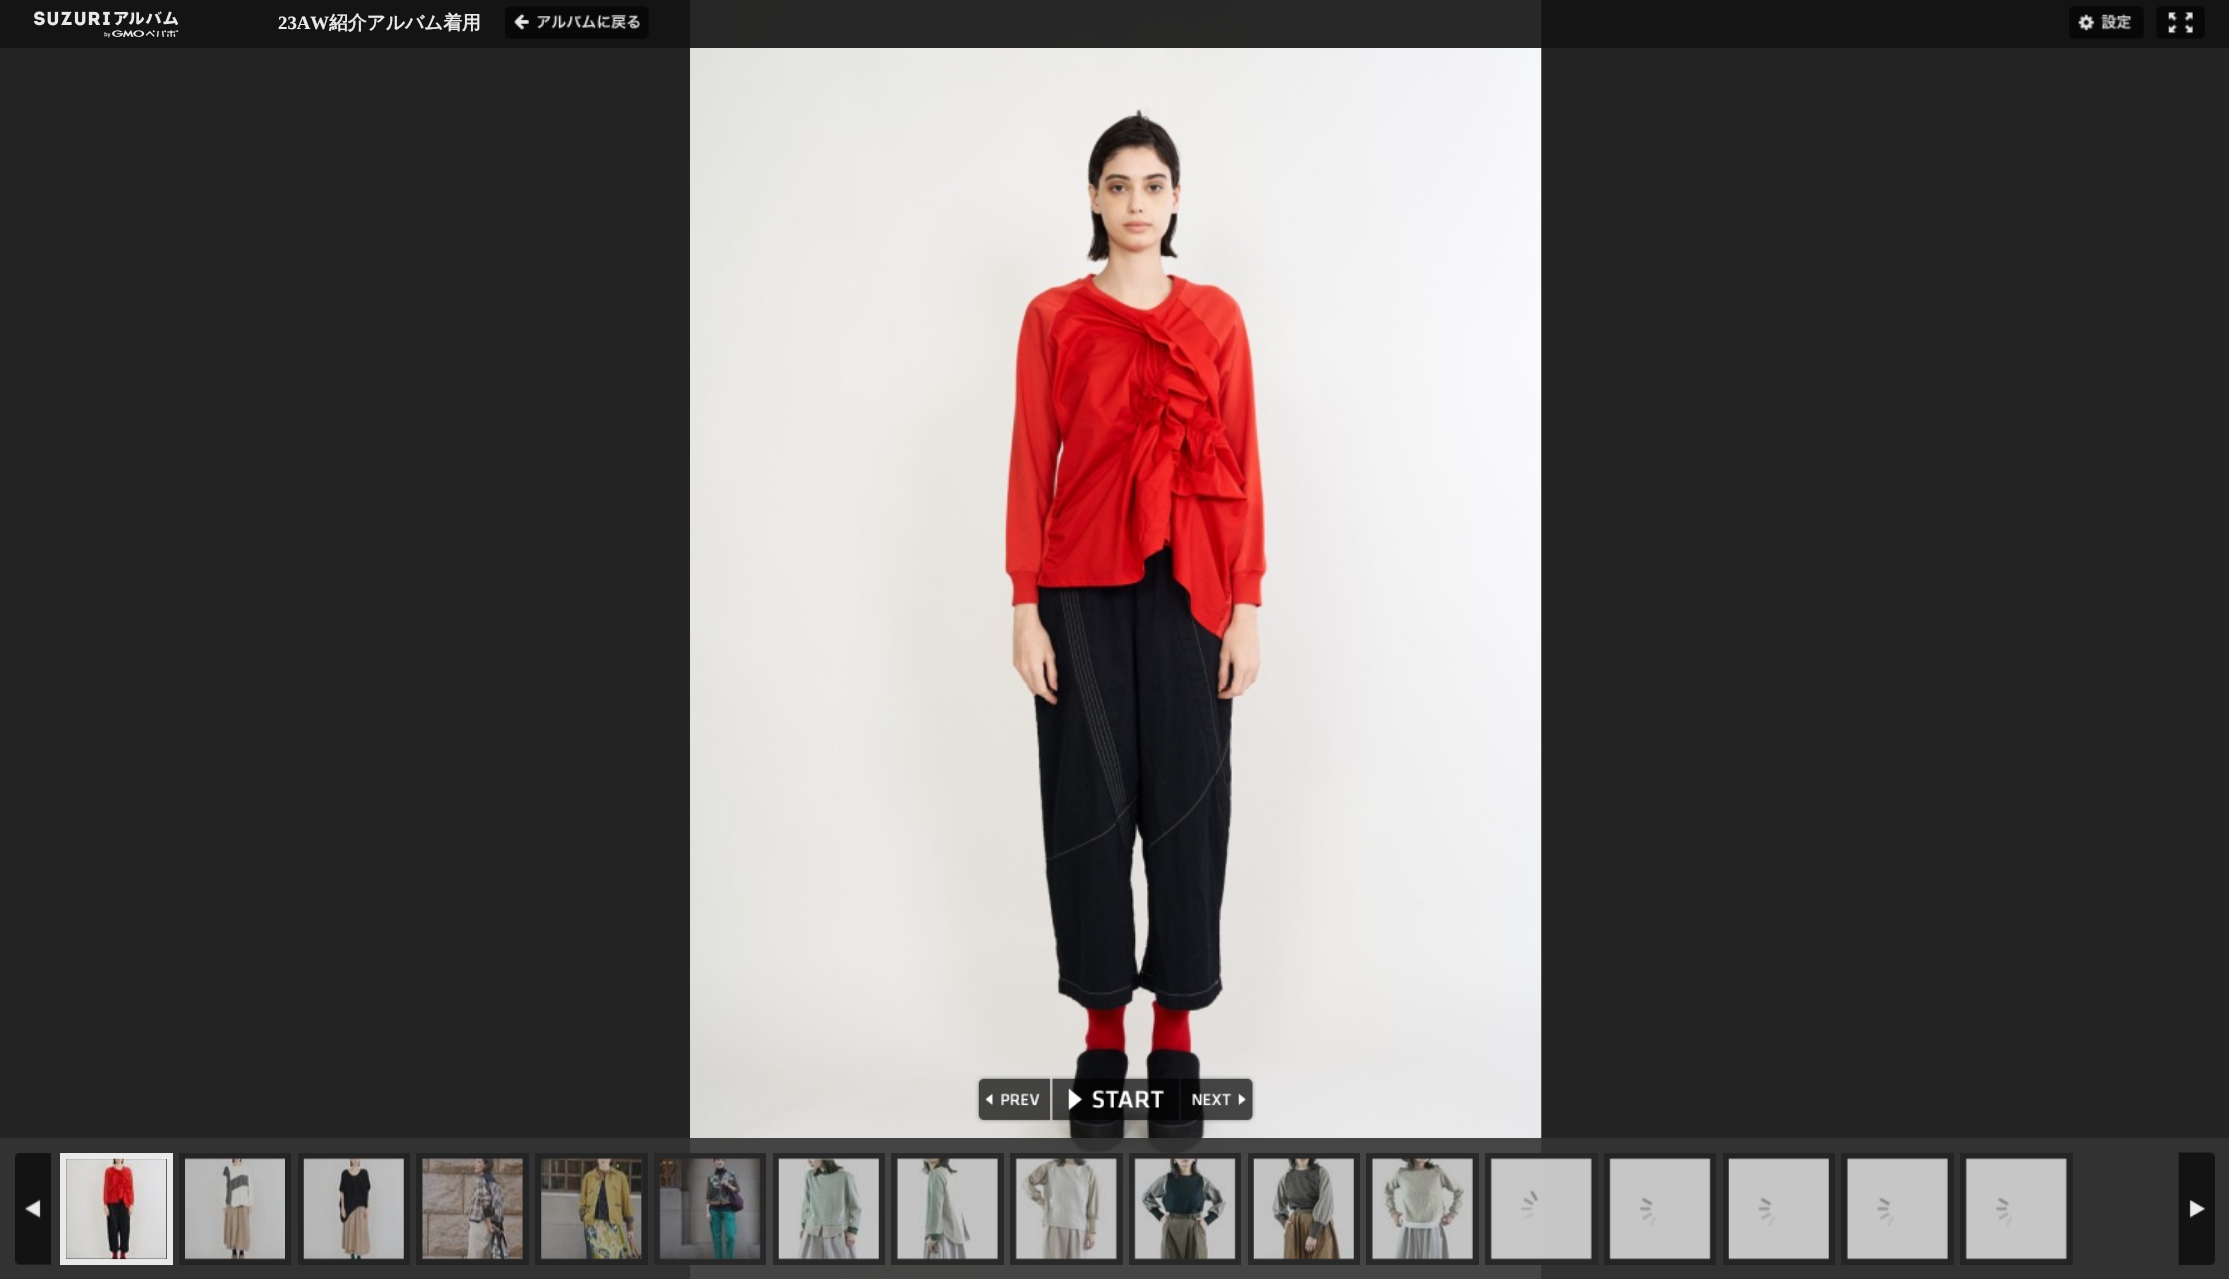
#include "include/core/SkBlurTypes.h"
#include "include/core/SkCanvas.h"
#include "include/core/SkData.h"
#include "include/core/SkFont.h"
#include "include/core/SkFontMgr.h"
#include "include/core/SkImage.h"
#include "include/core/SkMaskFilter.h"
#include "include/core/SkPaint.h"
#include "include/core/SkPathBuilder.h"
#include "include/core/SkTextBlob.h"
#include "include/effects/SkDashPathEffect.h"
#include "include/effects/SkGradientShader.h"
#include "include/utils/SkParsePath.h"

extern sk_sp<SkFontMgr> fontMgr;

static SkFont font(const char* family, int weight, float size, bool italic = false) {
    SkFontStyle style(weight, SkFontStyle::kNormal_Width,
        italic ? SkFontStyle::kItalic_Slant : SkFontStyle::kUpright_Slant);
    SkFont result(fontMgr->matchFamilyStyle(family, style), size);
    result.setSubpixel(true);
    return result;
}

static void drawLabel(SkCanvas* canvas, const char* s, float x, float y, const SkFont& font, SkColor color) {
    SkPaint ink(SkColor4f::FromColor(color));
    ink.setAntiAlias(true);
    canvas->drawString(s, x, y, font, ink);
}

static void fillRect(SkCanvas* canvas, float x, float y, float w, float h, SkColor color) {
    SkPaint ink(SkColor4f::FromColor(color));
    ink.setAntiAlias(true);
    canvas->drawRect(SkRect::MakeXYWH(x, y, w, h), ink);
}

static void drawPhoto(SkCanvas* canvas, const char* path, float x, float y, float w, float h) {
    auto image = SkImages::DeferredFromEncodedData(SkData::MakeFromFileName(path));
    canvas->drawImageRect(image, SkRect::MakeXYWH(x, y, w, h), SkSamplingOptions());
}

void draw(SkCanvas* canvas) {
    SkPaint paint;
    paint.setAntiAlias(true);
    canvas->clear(0xFF242424);
    drawPhoto(canvas, "assets/img5.png", 690, 0, 852, 1279);
    fillRect(canvas, 0, 0, 2229, 48, 0xE6121212);
    drawPhoto(canvas, "assets/img1.png", 34, 11, 145, 27);
    SkFont font1 = font("Liberation Serif", 700, 18.75f);
    drawLabel(canvas, "23AW", 278, 29, font1, 0xFFE9E9E9);
    SkFont font2 = font("WenQuanYi Zen Hei", 700, 18.75f);
    drawLabel(canvas, "紹介アルバム着用", 329, 29, font2, 0xFFE9E9E9);
    drawPhoto(canvas, "assets/img2.png", 505, 6, 144, 33);
    drawPhoto(canvas, "assets/img3.png", 2069, 6, 75, 33);
    drawPhoto(canvas, "assets/img4.png", 2156, 6, 49, 33);
    drawPhoto(canvas, "assets/img6.png", 975, 1075, 75, 49);
    drawPhoto(canvas, "assets/img7.png", 1050, 1075, 131, 49);
    drawPhoto(canvas, "assets/img8.png", 1181, 1075, 75, 49);
    fillRect(canvas, 0, 1138, 2229, 141, 0xE6333333);
    drawPhoto(canvas, "assets/img9.png", 15, 1153, 36, 112);
    paint.setStroke(true);
    paint.setStrokeWidth(6);
    paint.setColor(0xFFE9E9E9);
    canvas->drawRect(SkRect::MakeXYWH(63, 1156, 107, 106), paint);
    drawPhoto(canvas, "assets/img10.png", 66, 1158, 101, 102);
    paint.setColor(0xFF242424);
    canvas->drawRect(SkRect::MakeXYWH(182, 1156, 106, 106), paint);
    drawPhoto(canvas, "assets/img11.png", 185, 1158, 100, 102);
    canvas->drawRect(SkRect::MakeXYWH(301, 1156, 106, 106), paint);
    drawPhoto(canvas, "assets/img12.png", 303, 1158, 101, 102);
    canvas->drawRect(SkRect::MakeXYWH(419, 1156, 107, 106), paint);
    drawPhoto(canvas, "assets/img13.png", 422, 1158, 101, 102);
    canvas->drawRect(SkRect::MakeXYWH(538, 1156, 107, 106), paint);
    drawPhoto(canvas, "assets/img14.png", 541, 1158, 101, 102);
    fillRect(canvas, 690, 1159, 70, 100, 0xE6333333);
    paint.setColor(0xFF282828);
    canvas->drawRect(SkRect::MakeXYWH(657, 1156, 106, 106), paint);
    drawPhoto(canvas, "assets/img15.png", 659, 1158, 102, 102);
    paint.setStroke(false);
    paint.setColor(0xFF353535);
    canvas->drawRect(SkRect::MakeXYWH(776, 1156, 106, 106), paint);
    paint.setStroke(true);
    paint.setColor(0xFF292929);
    canvas->drawRect(SkRect::MakeXYWH(776, 1156, 106, 106), paint);
    drawPhoto(canvas, "assets/img16.png", 778, 1158, 101, 102);
    paint.setStroke(false);
    paint.setColor(0xFF353535);
    canvas->drawRect(SkRect::MakeXYWH(894, 1156, 107, 106), paint);
    paint.setStroke(true);
    paint.setColor(0xFF292929);
    canvas->drawRect(SkRect::MakeXYWH(894, 1156, 107, 106), paint);
    drawPhoto(canvas, "assets/img17.png", 896, 1158, 102, 102);
    paint.setStroke(false);
    paint.setColor(0xE6333333);
    canvas->drawRect(SkRect::MakeXYWH(1013, 1156, 107, 106), paint);
    paint.setStroke(true);
    paint.setColor(0xFF292929);
    canvas->drawRect(SkRect::MakeXYWH(1013, 1156, 107, 106), paint);
    drawPhoto(canvas, "assets/img18.png", 1015, 1158, 102, 102);
    paint.setStroke(false);
    paint.setColor(0xE6333333);
    canvas->drawRect(SkRect::MakeXYWH(1132, 1156, 106, 106), paint);
    paint.setStroke(true);
    paint.setColor(0xFF292929);
    canvas->drawRect(SkRect::MakeXYWH(1132, 1156, 106, 106), paint);
    drawPhoto(canvas, "assets/img19.png", 1134, 1158, 102, 102);
    paint.setStroke(false);
    paint.setColor(0xFF353535);
    canvas->drawRect(SkRect::MakeXYWH(1251, 1156, 106, 106), paint);
    paint.setStroke(true);
    paint.setColor(0xFF292929);
    canvas->drawRect(SkRect::MakeXYWH(1251, 1156, 106, 106), paint);
    drawPhoto(canvas, "assets/img20.png", 1253, 1158, 101, 102);
    paint.setStroke(false);
    paint.setColor(0xFF353535);
    canvas->drawRect(SkRect::MakeXYWH(1369, 1156, 107, 106), paint);
    paint.setStroke(true);
    paint.setColor(0xFF292929);
    canvas->drawRect(SkRect::MakeXYWH(1369, 1156, 107, 106), paint);
    drawPhoto(canvas, "assets/img21.png", 1371, 1158, 102, 102);
    fillRect(canvas, 1491, 1159, 51, 100, 0xE6333333);
    paint.setColor(0xFF282828);
    canvas->drawRect(SkRect::MakeXYWH(1488, 1156, 107, 106), paint);
    drawPhoto(canvas, "assets/img22.png", 1490, 1158, 102, 102);
    paint.setColor(0xFF242424);
    canvas->drawRect(SkRect::MakeXYWH(1607, 1156, 106, 106), paint);
    drawPhoto(canvas, "assets/img23.png", 1609, 1158, 102, 102);
    canvas->drawRect(SkRect::MakeXYWH(1726, 1156, 106, 106), paint);
    drawPhoto(canvas, "assets/img24.png", 1728, 1158, 101, 102);
    canvas->drawRect(SkRect::MakeXYWH(1844, 1156, 107, 106), paint);
    drawPhoto(canvas, "assets/img25.png", 1846, 1158, 102, 102);
    canvas->drawRect(SkRect::MakeXYWH(1963, 1156, 107, 106), paint);
    drawPhoto(canvas, "assets/img26.png", 1965, 1158, 102, 102);
    drawPhoto(canvas, "assets/img27.png", 2178, 1152, 37, 113);
}
